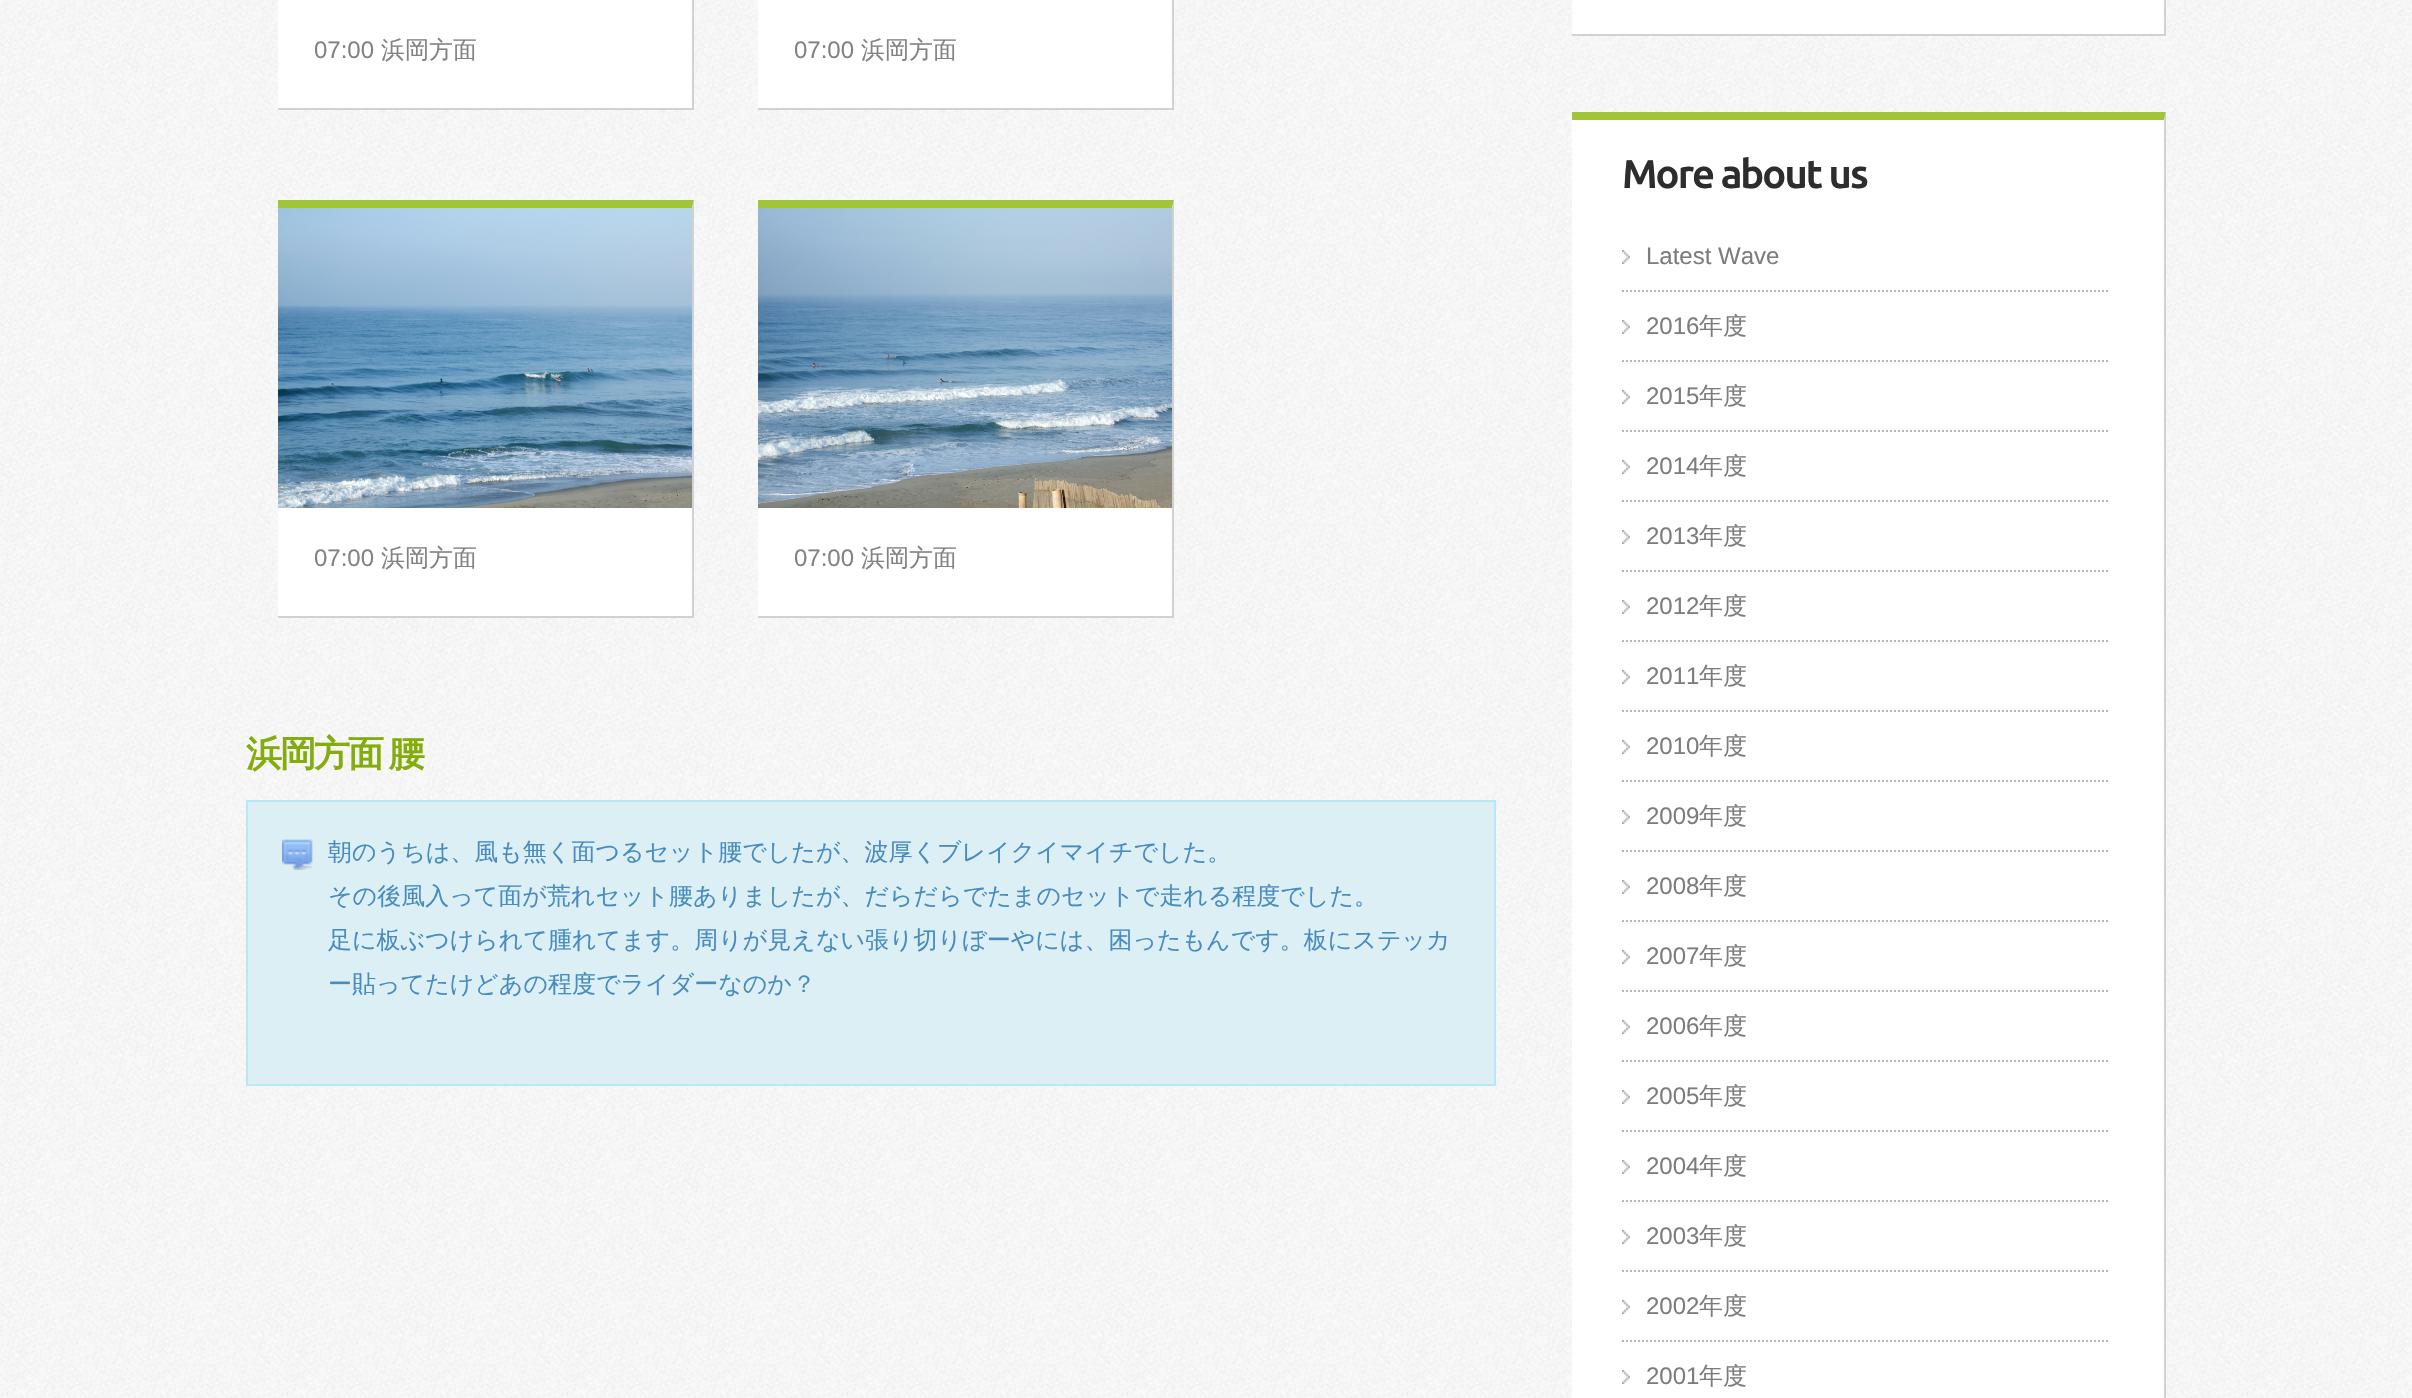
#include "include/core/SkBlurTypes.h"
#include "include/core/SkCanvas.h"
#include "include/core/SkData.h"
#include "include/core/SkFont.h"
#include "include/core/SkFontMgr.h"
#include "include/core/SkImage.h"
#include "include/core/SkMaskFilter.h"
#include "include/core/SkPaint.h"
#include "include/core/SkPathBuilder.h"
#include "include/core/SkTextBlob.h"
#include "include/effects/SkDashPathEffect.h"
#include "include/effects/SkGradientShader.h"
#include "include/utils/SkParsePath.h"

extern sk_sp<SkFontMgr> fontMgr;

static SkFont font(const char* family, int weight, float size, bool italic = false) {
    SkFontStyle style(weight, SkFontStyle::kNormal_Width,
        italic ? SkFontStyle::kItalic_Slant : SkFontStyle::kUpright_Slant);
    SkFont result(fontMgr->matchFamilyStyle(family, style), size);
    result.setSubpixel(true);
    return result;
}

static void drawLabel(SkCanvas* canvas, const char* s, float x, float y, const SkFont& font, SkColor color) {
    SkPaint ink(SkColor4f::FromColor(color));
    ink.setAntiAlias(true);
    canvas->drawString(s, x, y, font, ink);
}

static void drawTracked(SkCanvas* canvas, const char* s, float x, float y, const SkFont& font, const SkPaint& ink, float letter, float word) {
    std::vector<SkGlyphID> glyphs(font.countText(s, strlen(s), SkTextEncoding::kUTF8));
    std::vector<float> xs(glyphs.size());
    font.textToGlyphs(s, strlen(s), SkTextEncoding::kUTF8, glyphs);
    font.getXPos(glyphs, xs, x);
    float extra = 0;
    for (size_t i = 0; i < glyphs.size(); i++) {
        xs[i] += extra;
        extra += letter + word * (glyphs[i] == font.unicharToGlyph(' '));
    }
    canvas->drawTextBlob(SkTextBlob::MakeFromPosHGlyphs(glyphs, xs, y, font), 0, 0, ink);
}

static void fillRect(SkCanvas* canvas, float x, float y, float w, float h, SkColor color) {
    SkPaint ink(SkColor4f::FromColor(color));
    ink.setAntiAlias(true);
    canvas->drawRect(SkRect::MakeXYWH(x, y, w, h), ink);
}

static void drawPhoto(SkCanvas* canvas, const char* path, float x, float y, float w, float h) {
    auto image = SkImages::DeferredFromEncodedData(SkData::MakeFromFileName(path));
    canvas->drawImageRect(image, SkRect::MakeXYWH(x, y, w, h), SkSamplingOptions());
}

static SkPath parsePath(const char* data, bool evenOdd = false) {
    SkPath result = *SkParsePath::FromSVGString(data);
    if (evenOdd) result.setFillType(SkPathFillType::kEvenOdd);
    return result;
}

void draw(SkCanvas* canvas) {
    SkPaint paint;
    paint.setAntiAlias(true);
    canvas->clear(0xFFFFFFFF);
    drawPhoto(canvas, "assets/img1.png", 0, 0, 2412, 1398);
    fillRect(canvas, 278, 0, 414, 108, 0xFFFFFFFF);
    paint.setColor(0xFFD0D1D1);
    canvas->drawPath(parsePath("M694-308V110L692 108V-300Z"), paint);
    fillRect(canvas, 278, 108, 416, 2, 0xFFD0D1D1);
    SkFont font1 = font("Liberation Sans", 400, 24);
    drawLabel(canvas, "07:00", 314, 58, font1, 0xFF828282);
    SkFont font2 = font("WenQuanYi Zen Hei", 500, 24);
    drawLabel(canvas, "浜岡方面", 381, 58, font2, 0xFF828282);
    fillRect(canvas, 758, 0, 414, 108, 0xFFFFFFFF);
    canvas->drawPath(parsePath("M1174-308V110L1172 108V-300Z"), paint);
    fillRect(canvas, 758, 108, 416, 2, 0xFFD0D1D1);
    drawLabel(canvas, "07:00", 794, 58, font1, 0xFF828282);
    drawLabel(canvas, "浜岡方面", 861, 58, font2, 0xFF828282);
    fillRect(canvas, 278, 200, 416, 416, 0xFFFFFFFF);
    paint.setColor(0xFFA2C437);
    canvas->drawPath(parsePath("M278 200H694L692 208H278Z"), paint);
    paint.setColor(0xFFD0D1D1);
    canvas->drawPath(parsePath("M694 200V618L692 616V208Z"), paint);
    fillRect(canvas, 278, 616, 416, 2, 0xFFD0D1D1);
    drawPhoto(canvas, "assets/img2.png", 278, 208, 414, 300);
    drawLabel(canvas, "07:00", 314, 566, font1, 0xFF828282);
    drawLabel(canvas, "浜岡方面", 381, 566, font2, 0xFF828282);
    fillRect(canvas, 758, 200, 416, 416, 0xFFFFFFFF);
    paint.setColor(0xFFA2C437);
    canvas->drawPath(parsePath("M758 200H1174L1172 208H758Z"), paint);
    paint.setColor(0xFFD0D1D1);
    canvas->drawPath(parsePath("M1174 200V618L1172 616V208Z"), paint);
    fillRect(canvas, 758, 616, 416, 2, 0xFFD0D1D1);
    drawPhoto(canvas, "assets/img3.png", 758, 208, 414, 300);
    drawLabel(canvas, "07:00", 794, 566, font1, 0xFF828282);
    drawLabel(canvas, "浜岡方面", 861, 566, font2, 0xFF828282);
    SkFont font3 = font("WenQuanYi Zen Hei", 700, 36);
    paint.setColor(0xFF84AC0A);
    drawTracked(canvas, "浜岡方面 腰", 246, 766, font3, paint, -2, -2);
    fillRect(canvas, 248, 802, 1246, 282, 0xFFDCEFF5);
    drawPhoto(canvas, "assets/img4.png", 282, 839, 31, 31);
    paint.setStroke(true);
    paint.setStrokeWidth(2);
    paint.setColor(0xFFB8E7F5);
    canvas->drawRect(SkRect::MakeXYWH(247, 801, 1248, 284), paint);
    drawLabel(canvas, "朝のうちは、風も無く面つるセット腰でしたが、波厚くブレイクイマイチでした。", 328, 860, font2, 0xFF478BBF);
    drawLabel(canvas, "その後風入って面が荒れセット腰ありましたが、だらだらでたまのセットで走れる程度でした。", 328, 904, font2, 0xFF478BBF);
    drawLabel(canvas, "足に板ぶつけられて腫れてます。周りが見えない張り切りぼーやには、困ったもんです。板にステッカ", 328, 948, font2, 0xFF478BBF);
    drawLabel(canvas, "ー貼ってたけどあの程度でライダーなのか？", 328, 992, font2, 0xFF478BBF);
    fillRect(canvas, 1572, 0, 592, 34, 0xFFFFFFFF);
    paint.setStroke(false);
    paint.setColor(0xFFD0D1D1);
    canvas->drawPath(parsePath("M2166-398V36L2164 34V-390Z"), paint);
    fillRect(canvas, 1572, 34, 594, 2, 0xFFD0D1D1);
    fillRect(canvas, 1572, 112, 594, 1286, 0xFFFFFFFF);
    paint.setColor(0xFFA2C437);
    canvas->drawPath(parsePath("M1572 112H2166L2164 120H1572Z"), paint);
    paint.setColor(0xFFD0D1D1);
    canvas->drawPath(parsePath("M2166 112V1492L2164 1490V120Z"), paint);
    SkFont font4 = font("Ubuntu", 700, 40);
    paint.setColor(0xFF2D2D2D);
    drawTracked(canvas, "More about us", 1622, 188, font4, paint, -2, 0);
    paint.setStroke(true);
    paint.setColor(0xFFB6B6B6);
    paint.setPathEffect(SkDashPathEffect::Make({{2, 2}}, 0));
    canvas->drawPath(parsePath("M1622 291H2110"), paint);
    paint.setPathEffect(nullptr);
    drawPhoto(canvas, "assets/img5.png", 1622, 250, 8, 14);
    drawLabel(canvas, "Latest Wave", 1646, 264, font1, 0xFF7C7C7C);
    paint.setPathEffect(SkDashPathEffect::Make({{2, 2}}, 0));
    canvas->drawPath(parsePath("M1622 361H2110"), paint);
    paint.setPathEffect(nullptr);
    drawPhoto(canvas, "assets/img5.png", 1622, 320, 8, 14);
    drawLabel(canvas, "2016", 1646, 334, font1, 0xFF7C7C7C);
    drawLabel(canvas, "年度", 1699, 334, font2, 0xFF7C7C7C);
    paint.setPathEffect(SkDashPathEffect::Make({{2, 2}}, 0));
    canvas->drawPath(parsePath("M1622 431H2110"), paint);
    paint.setPathEffect(nullptr);
    drawPhoto(canvas, "assets/img5.png", 1622, 390, 8, 14);
    drawLabel(canvas, "2015", 1646, 404, font1, 0xFF7C7C7C);
    drawLabel(canvas, "年度", 1699, 404, font2, 0xFF7C7C7C);
    paint.setPathEffect(SkDashPathEffect::Make({{2, 2}}, 0));
    canvas->drawPath(parsePath("M1622 501H2110"), paint);
    paint.setPathEffect(nullptr);
    drawPhoto(canvas, "assets/img5.png", 1622, 460, 8, 14);
    drawLabel(canvas, "2014", 1646, 474, font1, 0xFF7C7C7C);
    drawLabel(canvas, "年度", 1699, 474, font2, 0xFF7C7C7C);
    paint.setPathEffect(SkDashPathEffect::Make({{2, 2}}, 0));
    canvas->drawPath(parsePath("M1622 571H2110"), paint);
    paint.setPathEffect(nullptr);
    drawPhoto(canvas, "assets/img5.png", 1622, 530, 8, 14);
    drawLabel(canvas, "2013", 1646, 544, font1, 0xFF7C7C7C);
    drawLabel(canvas, "年度", 1699, 544, font2, 0xFF7C7C7C);
    paint.setPathEffect(SkDashPathEffect::Make({{2, 2}}, 0));
    canvas->drawPath(parsePath("M1622 641H2110"), paint);
    paint.setPathEffect(nullptr);
    drawPhoto(canvas, "assets/img5.png", 1622, 600, 8, 14);
    drawLabel(canvas, "2012", 1646, 614, font1, 0xFF7C7C7C);
    drawLabel(canvas, "年度", 1699, 614, font2, 0xFF7C7C7C);
    paint.setPathEffect(SkDashPathEffect::Make({{2, 2}}, 0));
    canvas->drawPath(parsePath("M1622 711H2110"), paint);
    paint.setPathEffect(nullptr);
    drawPhoto(canvas, "assets/img5.png", 1622, 670, 8, 14);
    drawLabel(canvas, "2011", 1646, 684, font1, 0xFF7C7C7C);
    drawLabel(canvas, "年度", 1699, 684, font2, 0xFF7C7C7C);
    paint.setPathEffect(SkDashPathEffect::Make({{2, 2}}, 0));
    canvas->drawPath(parsePath("M1622 781H2110"), paint);
    paint.setPathEffect(nullptr);
    drawPhoto(canvas, "assets/img5.png", 1622, 740, 8, 14);
    drawLabel(canvas, "2010", 1646, 754, font1, 0xFF7C7C7C);
    drawLabel(canvas, "年度", 1699, 754, font2, 0xFF7C7C7C);
    paint.setPathEffect(SkDashPathEffect::Make({{2, 2}}, 0));
    canvas->drawPath(parsePath("M1622 851H2110"), paint);
    paint.setPathEffect(nullptr);
    drawPhoto(canvas, "assets/img5.png", 1622, 810, 8, 14);
    drawLabel(canvas, "2009", 1646, 824, font1, 0xFF7C7C7C);
    drawLabel(canvas, "年度", 1699, 824, font2, 0xFF7C7C7C);
    paint.setPathEffect(SkDashPathEffect::Make({{2, 2}}, 0));
    canvas->drawPath(parsePath("M1622 921H2110"), paint);
    paint.setPathEffect(nullptr);
    drawPhoto(canvas, "assets/img5.png", 1622, 880, 8, 14);
    drawLabel(canvas, "2008", 1646, 894, font1, 0xFF7C7C7C);
    drawLabel(canvas, "年度", 1699, 894, font2, 0xFF7C7C7C);
    paint.setPathEffect(SkDashPathEffect::Make({{2, 2}}, 0));
    canvas->drawPath(parsePath("M1622 991H2110"), paint);
    paint.setPathEffect(nullptr);
    drawPhoto(canvas, "assets/img5.png", 1622, 950, 8, 14);
    drawLabel(canvas, "2007", 1646, 964, font1, 0xFF7C7C7C);
    drawLabel(canvas, "年度", 1699, 964, font2, 0xFF7C7C7C);
    paint.setPathEffect(SkDashPathEffect::Make({{2, 2}}, 0));
    canvas->drawPath(parsePath("M1622 1061H2110"), paint);
    paint.setPathEffect(nullptr);
    drawPhoto(canvas, "assets/img5.png", 1622, 1020, 8, 14);
    drawLabel(canvas, "2006", 1646, 1034, font1, 0xFF7C7C7C);
    drawLabel(canvas, "年度", 1699, 1034, font2, 0xFF7C7C7C);
    paint.setPathEffect(SkDashPathEffect::Make({{2, 2}}, 0));
    canvas->drawPath(parsePath("M1622 1131H2110"), paint);
    paint.setPathEffect(nullptr);
    drawPhoto(canvas, "assets/img5.png", 1622, 1090, 8, 14);
    drawLabel(canvas, "2005", 1646, 1104, font1, 0xFF7C7C7C);
    drawLabel(canvas, "年度", 1699, 1104, font2, 0xFF7C7C7C);
    paint.setPathEffect(SkDashPathEffect::Make({{2, 2}}, 0));
    canvas->drawPath(parsePath("M1622 1201H2110"), paint);
    paint.setPathEffect(nullptr);
    drawPhoto(canvas, "assets/img5.png", 1622, 1160, 8, 14);
    drawLabel(canvas, "2004", 1646, 1174, font1, 0xFF7C7C7C);
    drawLabel(canvas, "年度", 1699, 1174, font2, 0xFF7C7C7C);
    paint.setPathEffect(SkDashPathEffect::Make({{2, 2}}, 0));
    canvas->drawPath(parsePath("M1622 1271H2110"), paint);
    paint.setPathEffect(nullptr);
    drawPhoto(canvas, "assets/img5.png", 1622, 1230, 8, 14);
    drawLabel(canvas, "2003", 1646, 1244, font1, 0xFF7C7C7C);
    drawLabel(canvas, "年度", 1699, 1244, font2, 0xFF7C7C7C);
    paint.setPathEffect(SkDashPathEffect::Make({{2, 2}}, 0));
    canvas->drawPath(parsePath("M1622 1341H2110"), paint);
    paint.setPathEffect(nullptr);
    drawPhoto(canvas, "assets/img5.png", 1622, 1300, 8, 14);
    drawLabel(canvas, "2002", 1646, 1314, font1, 0xFF7C7C7C);
    drawLabel(canvas, "年度", 1699, 1314, font2, 0xFF7C7C7C);
    drawPhoto(canvas, "assets/img5.png", 1622, 1370, 8, 14);
    drawLabel(canvas, "2001", 1646, 1384, font1, 0xFF7C7C7C);
    drawLabel(canvas, "年度", 1699, 1384, font2, 0xFF7C7C7C);
}
